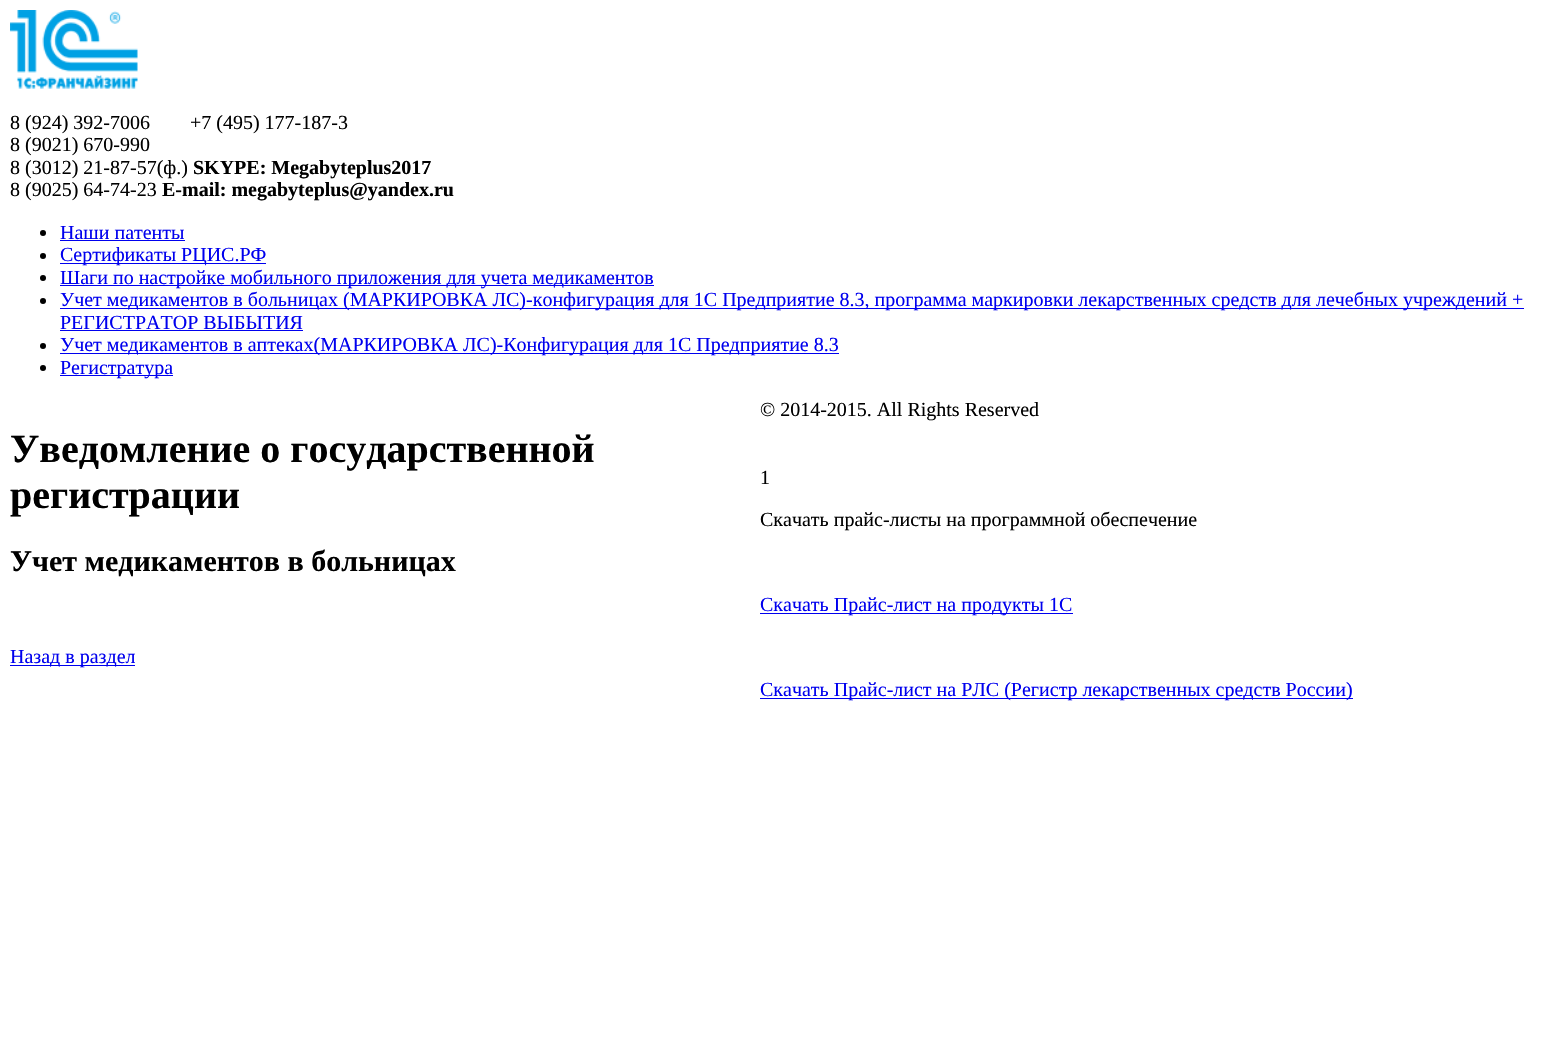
#include "include/core/SkBlurTypes.h"
#include "include/core/SkCanvas.h"
#include "include/core/SkData.h"
#include "include/core/SkFont.h"
#include "include/core/SkFontMgr.h"
#include "include/core/SkImage.h"
#include "include/core/SkMaskFilter.h"
#include "include/core/SkPaint.h"
#include "include/core/SkPathBuilder.h"
#include "include/core/SkTextBlob.h"
#include "include/effects/SkDashPathEffect.h"
#include "include/effects/SkGradientShader.h"
#include "include/utils/SkParsePath.h"

extern sk_sp<SkFontMgr> fontMgr;

static SkFont font(const char* family, int weight, float size, bool italic = false) {
    SkFontStyle style(weight, SkFontStyle::kNormal_Width,
        italic ? SkFontStyle::kItalic_Slant : SkFontStyle::kUpright_Slant);
    SkFont result(fontMgr->matchFamilyStyle(family, style), size);
    result.setSubpixel(true);
    return result;
}

static void drawLabel(SkCanvas* canvas, const char* s, float x, float y, const SkFont& font, SkColor color) {
    SkPaint ink(SkColor4f::FromColor(color));
    ink.setAntiAlias(true);
    canvas->drawString(s, x, y, font, ink);
}

static void fillRect(SkCanvas* canvas, float x, float y, float w, float h, SkColor color) {
    SkPaint ink(SkColor4f::FromColor(color));
    ink.setAntiAlias(true);
    canvas->drawRect(SkRect::MakeXYWH(x, y, w, h), ink);
}

static void drawPhoto(SkCanvas* canvas, const char* path, float x, float y, float w, float h) {
    auto image = SkImages::DeferredFromEncodedData(SkData::MakeFromFileName(path));
    canvas->drawImageRect(image, SkRect::MakeXYWH(x, y, w, h), SkSamplingOptions());
}

void draw(SkCanvas* canvas) {
    SkPaint paint;
    paint.setAntiAlias(true);
    canvas->clear(0xFFFFFFFF);
    drawPhoto(canvas, "assets/img1.png", 10, 10, 128, 79);
    SkFont font1 = font("Liberation Serif", 400, 20);
    drawLabel(canvas, "8 (924) 392-7006        +7 (495) 177-187-3", 10, 129, font1, 0xFF000000);
    drawLabel(canvas, "8 (9021) 670-990", 10, 151, font1, 0xFF000000);
    drawLabel(canvas, "8 (3012) 21-87-57(ф.)", 10, 174, font1, 0xFF000000);
    SkFont font2 = font("Liberation Serif", 700, 20);
    drawLabel(canvas, "SKYPE: Megabyteplus2017", 193, 174, font2, 0xFF000000);
    drawLabel(canvas, "8 (9025) 64-74-23", 10, 196, font1, 0xFF000000);
    drawLabel(canvas, "E-mail: megabyteplus@yandex.ru", 162, 196, font2, 0xFF000000);
    paint.setColor(0xFF000000);
    canvas->drawCircle(43, 233, 3, paint);
    drawLabel(canvas, "Наши патенты", 60, 239, font1, 0xFF0000EE);
    fillRect(canvas, 60, 240, 125, 1, 0xFF0000EE);
    canvas->drawCircle(43, 256, 3, paint);
    fillRect(canvas, 60, 263, 206, 1, 0xFF0000EE);
    drawLabel(canvas, "Сертификаты РЦИС.РФ", 60, 261, font1, 0xFF0000EE);
    canvas->drawCircle(43, 278, 3, paint);
    fillRect(canvas, 60, 285, 594, 1, 0xFF0000EE);
    drawLabel(canvas, "Шаги по настройке мобильного приложения для учета медикаментов", 60, 284, font1, 0xFF0000EE);
    canvas->drawCircle(43, 301, 3, paint);
    fillRect(canvas, 60, 308, 1464, 1, 0xFF0000EE);
    drawLabel(canvas, "Учет медикаментов в больницах (МАРКИРОВКА ЛС)-конфигурация для 1С Предприятие 8.3, программа маркировки лекарственных средств для лечебных учреждений +", 60, 306, font1, 0xFF0000EE);
    drawLabel(canvas, "РЕГИСТРАТОР ВЫБЫТИЯ", 60, 329, font1, 0xFF0000EE);
    fillRect(canvas, 60, 330, 243, 1, 0xFF0000EE);
    canvas->drawCircle(43, 346, 3, paint);
    fillRect(canvas, 60, 353, 779, 1, 0xFF0000EE);
    drawLabel(canvas, "Учет медикаментов в аптеках(МАРКИРОВКА ЛС)-Конфигурация для 1С Предприятие 8.3", 60, 351, font1, 0xFF0000EE);
    canvas->drawCircle(43, 368, 3, paint);
    fillRect(canvas, 60, 375, 113, 1, 0xFF0000EE);
    drawLabel(canvas, "Регистратура", 60, 374, font1, 0xFF0000EE);
    SkFont font3 = font("Liberation Serif", 700, 40);
    drawLabel(canvas, "Уведомление о государственной", 10, 462, font3, 0xFF000000);
    drawLabel(canvas, "регистрации", 10, 508, font3, 0xFF000000);
    SkFont font4 = font("Liberation Serif", 700, 30);
    drawLabel(canvas, "Учет медикаментов в больницах", 10, 571, font4, 0xFF000000);
    fillRect(canvas, 10, 665, 125, 1, 0xFF0000EE);
    drawLabel(canvas, "Назад в раздел", 10, 663, font1, 0xFF0000EE);
    drawLabel(canvas, "© 2014-2015. All Rights Reserved", 760, 416, font1, 0xFF000000);
    drawLabel(canvas, "1", 760, 484, font1, 0xFF000000);
    drawLabel(canvas, "Скачать прайс-листы на программной обеспечение", 760, 526, font1, 0xFF000000);
    fillRect(canvas, 760, 613, 313, 1, 0xFF0000EE);
    drawLabel(canvas, "Скачать Прайс-лист на продукты 1С", 760, 611, font1, 0xFF0000EE);
    fillRect(canvas, 760, 698, 593, 1, 0xFF0000EE);
    drawLabel(canvas, "Скачать Прайс-лист на РЛС (Регистр лекарственных средств России)", 760, 696, font1, 0xFF0000EE);
}
